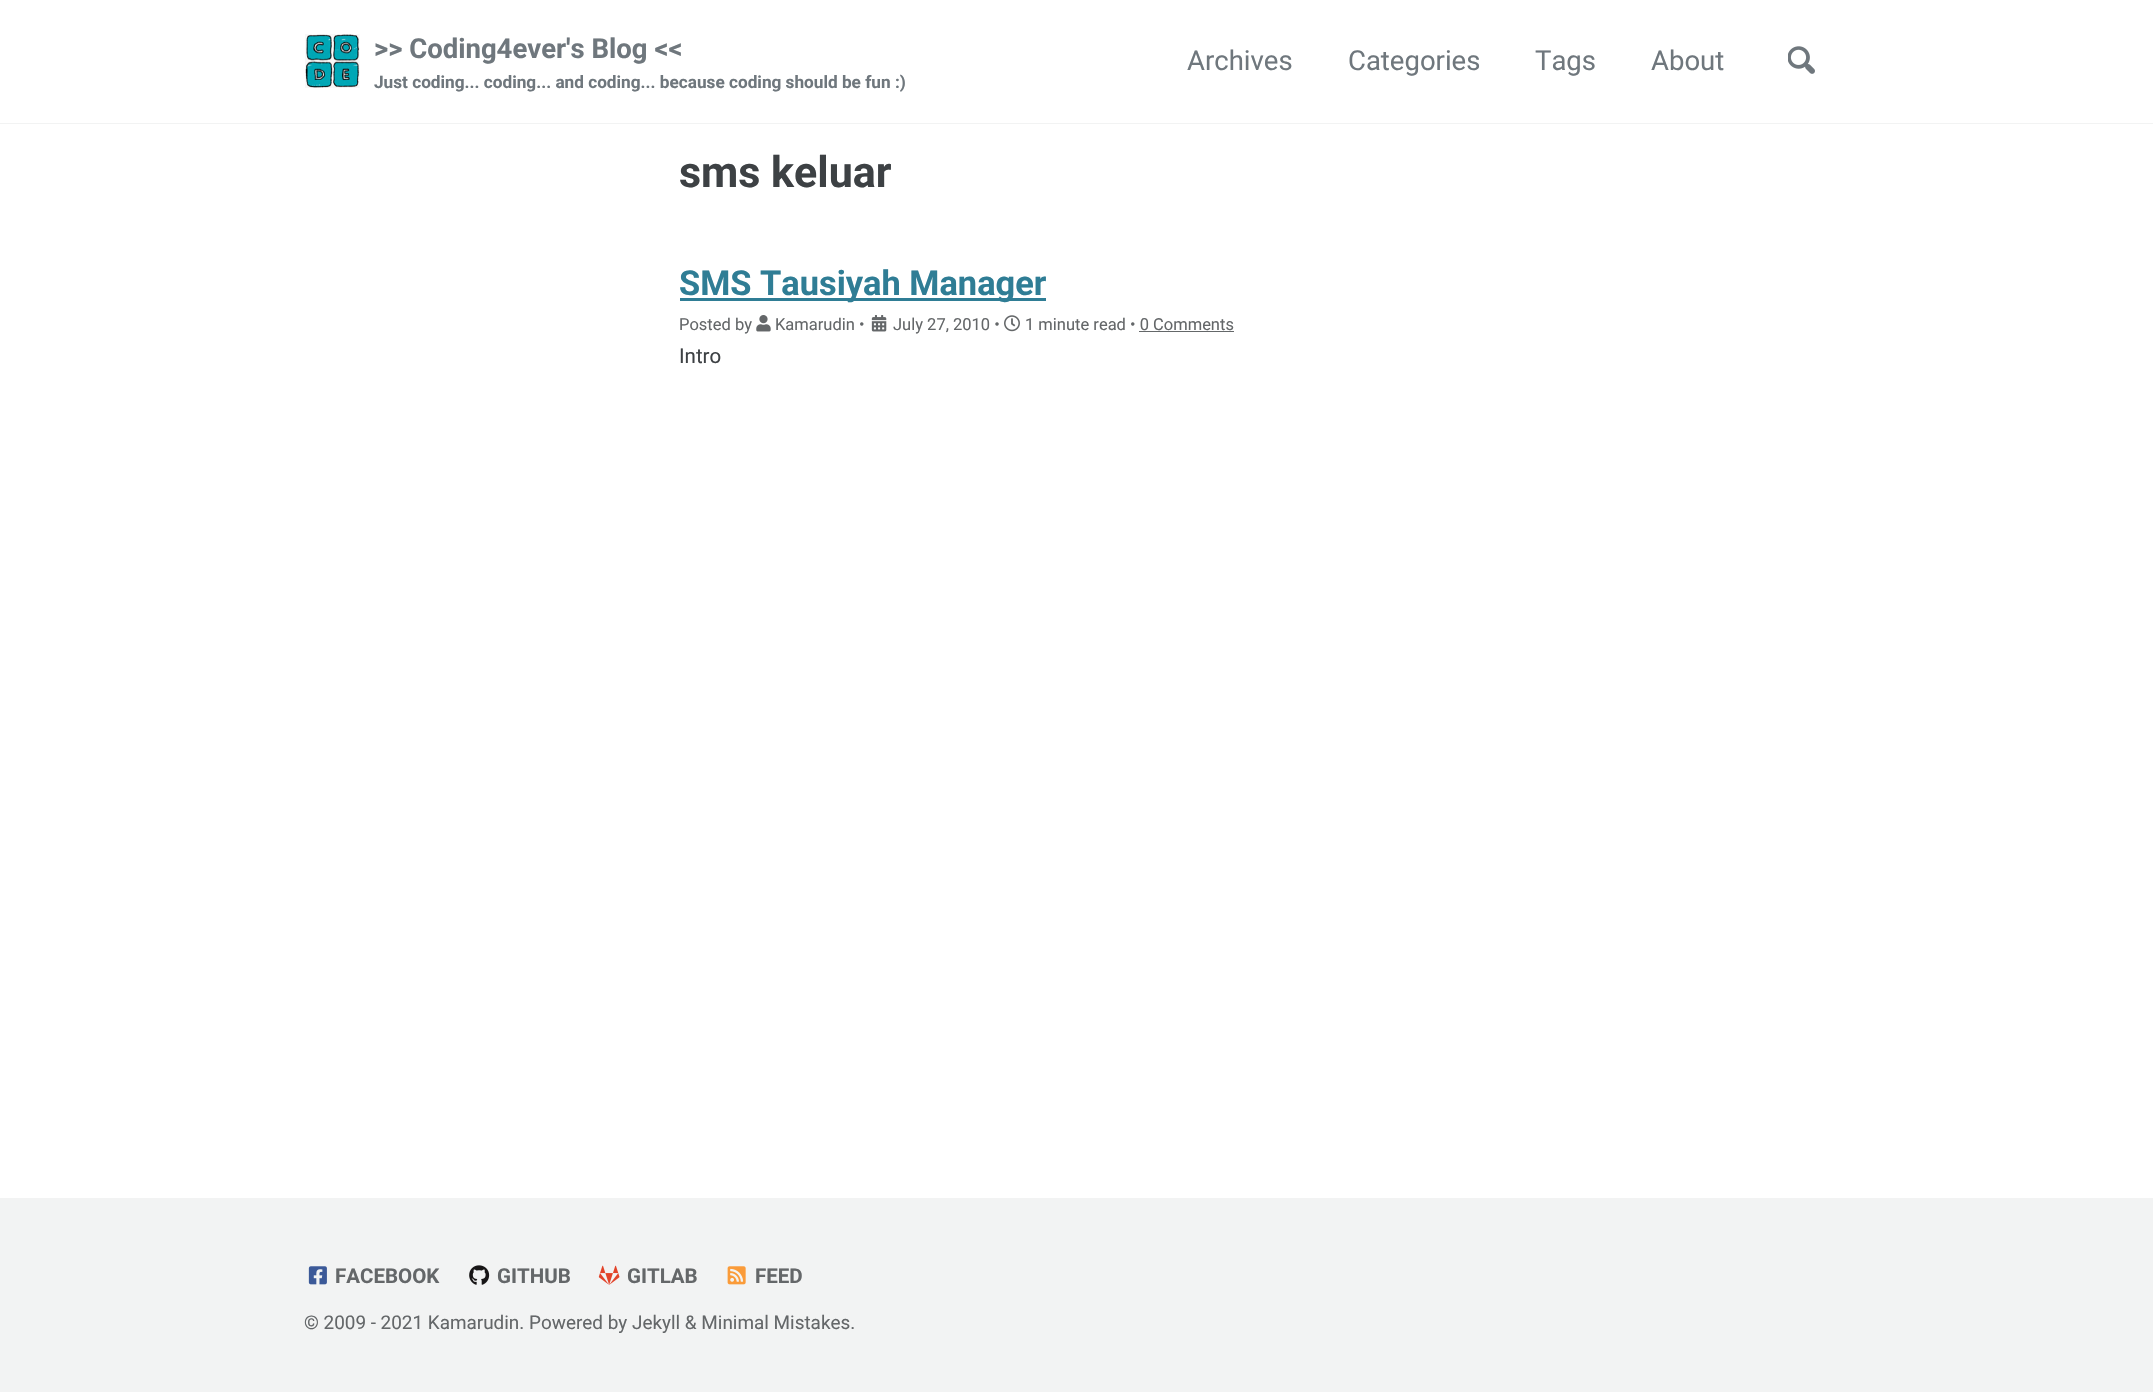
#include "include/core/SkBlurTypes.h"
#include "include/core/SkCanvas.h"
#include "include/core/SkData.h"
#include "include/core/SkFont.h"
#include "include/core/SkFontMgr.h"
#include "include/core/SkImage.h"
#include "include/core/SkMaskFilter.h"
#include "include/core/SkPaint.h"
#include "include/core/SkPathBuilder.h"
#include "include/core/SkTextBlob.h"
#include "include/effects/SkDashPathEffect.h"
#include "include/effects/SkGradientShader.h"
#include "include/utils/SkParsePath.h"

extern sk_sp<SkFontMgr> fontMgr;

static SkFont font(const char* family, int weight, float size, bool italic = false) {
    SkFontStyle style(weight, SkFontStyle::kNormal_Width,
        italic ? SkFontStyle::kItalic_Slant : SkFontStyle::kUpright_Slant);
    SkFont result(fontMgr->matchFamilyStyle(family, style), size);
    result.setSubpixel(true);
    return result;
}

static void drawLabel(SkCanvas* canvas, const char* s, float x, float y, const SkFont& font, SkColor color) {
    SkPaint ink(SkColor4f::FromColor(color));
    ink.setAntiAlias(true);
    canvas->drawString(s, x, y, font, ink);
}

static void fillRect(SkCanvas* canvas, float x, float y, float w, float h, SkColor color) {
    SkPaint ink(SkColor4f::FromColor(color));
    ink.setAntiAlias(true);
    canvas->drawRect(SkRect::MakeXYWH(x, y, w, h), ink);
}

static void drawPhoto(SkCanvas* canvas, const char* path, float x, float y, float w, float h) {
    auto image = SkImages::DeferredFromEncodedData(SkData::MakeFromFileName(path));
    canvas->drawImageRect(image, SkRect::MakeXYWH(x, y, w, h), SkSamplingOptions());
}

void draw(SkCanvas* canvas) {
    SkPaint paint;
    paint.setAntiAlias(true);
    canvas->clear(0xFFFFFFFF);
    fillRect(canvas, 0, 123, 2153, 1, 0xFFF2F3F3);
    drawPhoto(canvas, "assets/img1.png", 305, 34, 55, 54);
    SkFont font1 = font("Roboto", 700, 27.5f);
    drawLabel(canvas, ">> Coding4ever's Blog <<", 374, 58, font1, 0xFF6F777D);
    SkFont font2 = font("Roboto", 700, 17.2f);
    drawLabel(canvas, "Just coding... coding... and coding... because coding should be fun :)", 374, 88, font2, 0xFF6F777D);
    SkFont font3 = font("Roboto", 400, 27.5f);
    drawLabel(canvas, "Archives", 1187, 70, font3, 0xFF6F777D);
    drawLabel(canvas, "Categories", 1348, 70, font3, 0xFF6F777D);
    drawLabel(canvas, "Tags", 1535, 70, font3, 0xFF6F777D);
    drawLabel(canvas, "About", 1651, 70, font3, 0xFF6F777D);
    drawPhoto(canvas, "assets/img2.png", 1788, 46, 27, 28);
    SkFont font4 = font("Roboto", 700, 43);
    drawLabel(canvas, "sms keluar", 679, 187, font4, 0xFF3D4144);
    fillRect(canvas, 680, 298, 366, 3, 0xFF2F7D95);
    SkFont font5 = font("Roboto", 700, 34.4f);
    drawLabel(canvas, "SMS Tausiyah Manager", 679, 295, font5, 0xFF2F7D95);
    SkFont font6 = font("Roboto", 400, 16.5f);
    drawLabel(canvas, "Posted by", 679, 330, font6, 0xFF646769);
    drawPhoto(canvas, "assets/img3.png", 756, 315, 15, 17);
    drawLabel(canvas, "Kamarudin •", 775, 330, font6, 0xFF646769);
    drawPhoto(canvas, "assets/img4.png", 871, 315, 16, 17);
    drawLabel(canvas, "July 27, 2010 •", 893, 330, font6, 0xFF646769);
    drawPhoto(canvas, "assets/img5.png", 1004, 315, 16, 17);
    drawLabel(canvas, "1 minute read • 0 Comments", 1025, 330, font6, 0xFF646769);
    fillRect(canvas, 1139, 331, 95, 1, 0xFF646769);
    SkFont font7 = font("Roboto", 400, 20.5f);
    drawLabel(canvas, "Intro", 679, 363, font7, 0xFF3D4144);
    fillRect(canvas, 0, 1198, 2153, 194, 0xFFF2F3F3);
    drawPhoto(canvas, "assets/img6.png", 308, 1266, 19, 19);
    SkFont font8 = font("Roboto", 700, 20.5f);
    drawLabel(canvas, "FACEBOOK", 335, 1283, font8, 0xFF646769);
    drawPhoto(canvas, "assets/img7.png", 469, 1265, 21, 20);
    drawLabel(canvas, "GITHUB", 497, 1283, font8, 0xFF646769);
    drawPhoto(canvas, "assets/img8.png", 598, 1265, 22, 20);
    drawLabel(canvas, "GITLAB", 627, 1283, font8, 0xFF646769);
    drawPhoto(canvas, "assets/img9.png", 727, 1266, 19, 19);
    drawLabel(canvas, "FEED", 755, 1283, font8, 0xFF646769);
    SkFont font9 = font("Roboto", 400, 18.9f);
    drawLabel(canvas, "© 2009 - 2021 Kamarudin. Powered by", 304, 1329, font9, 0xFF646769);
    drawLabel(canvas, "Jekyll & Minimal Mistakes.", 632, 1329, font9, 0xFF646769);
}
